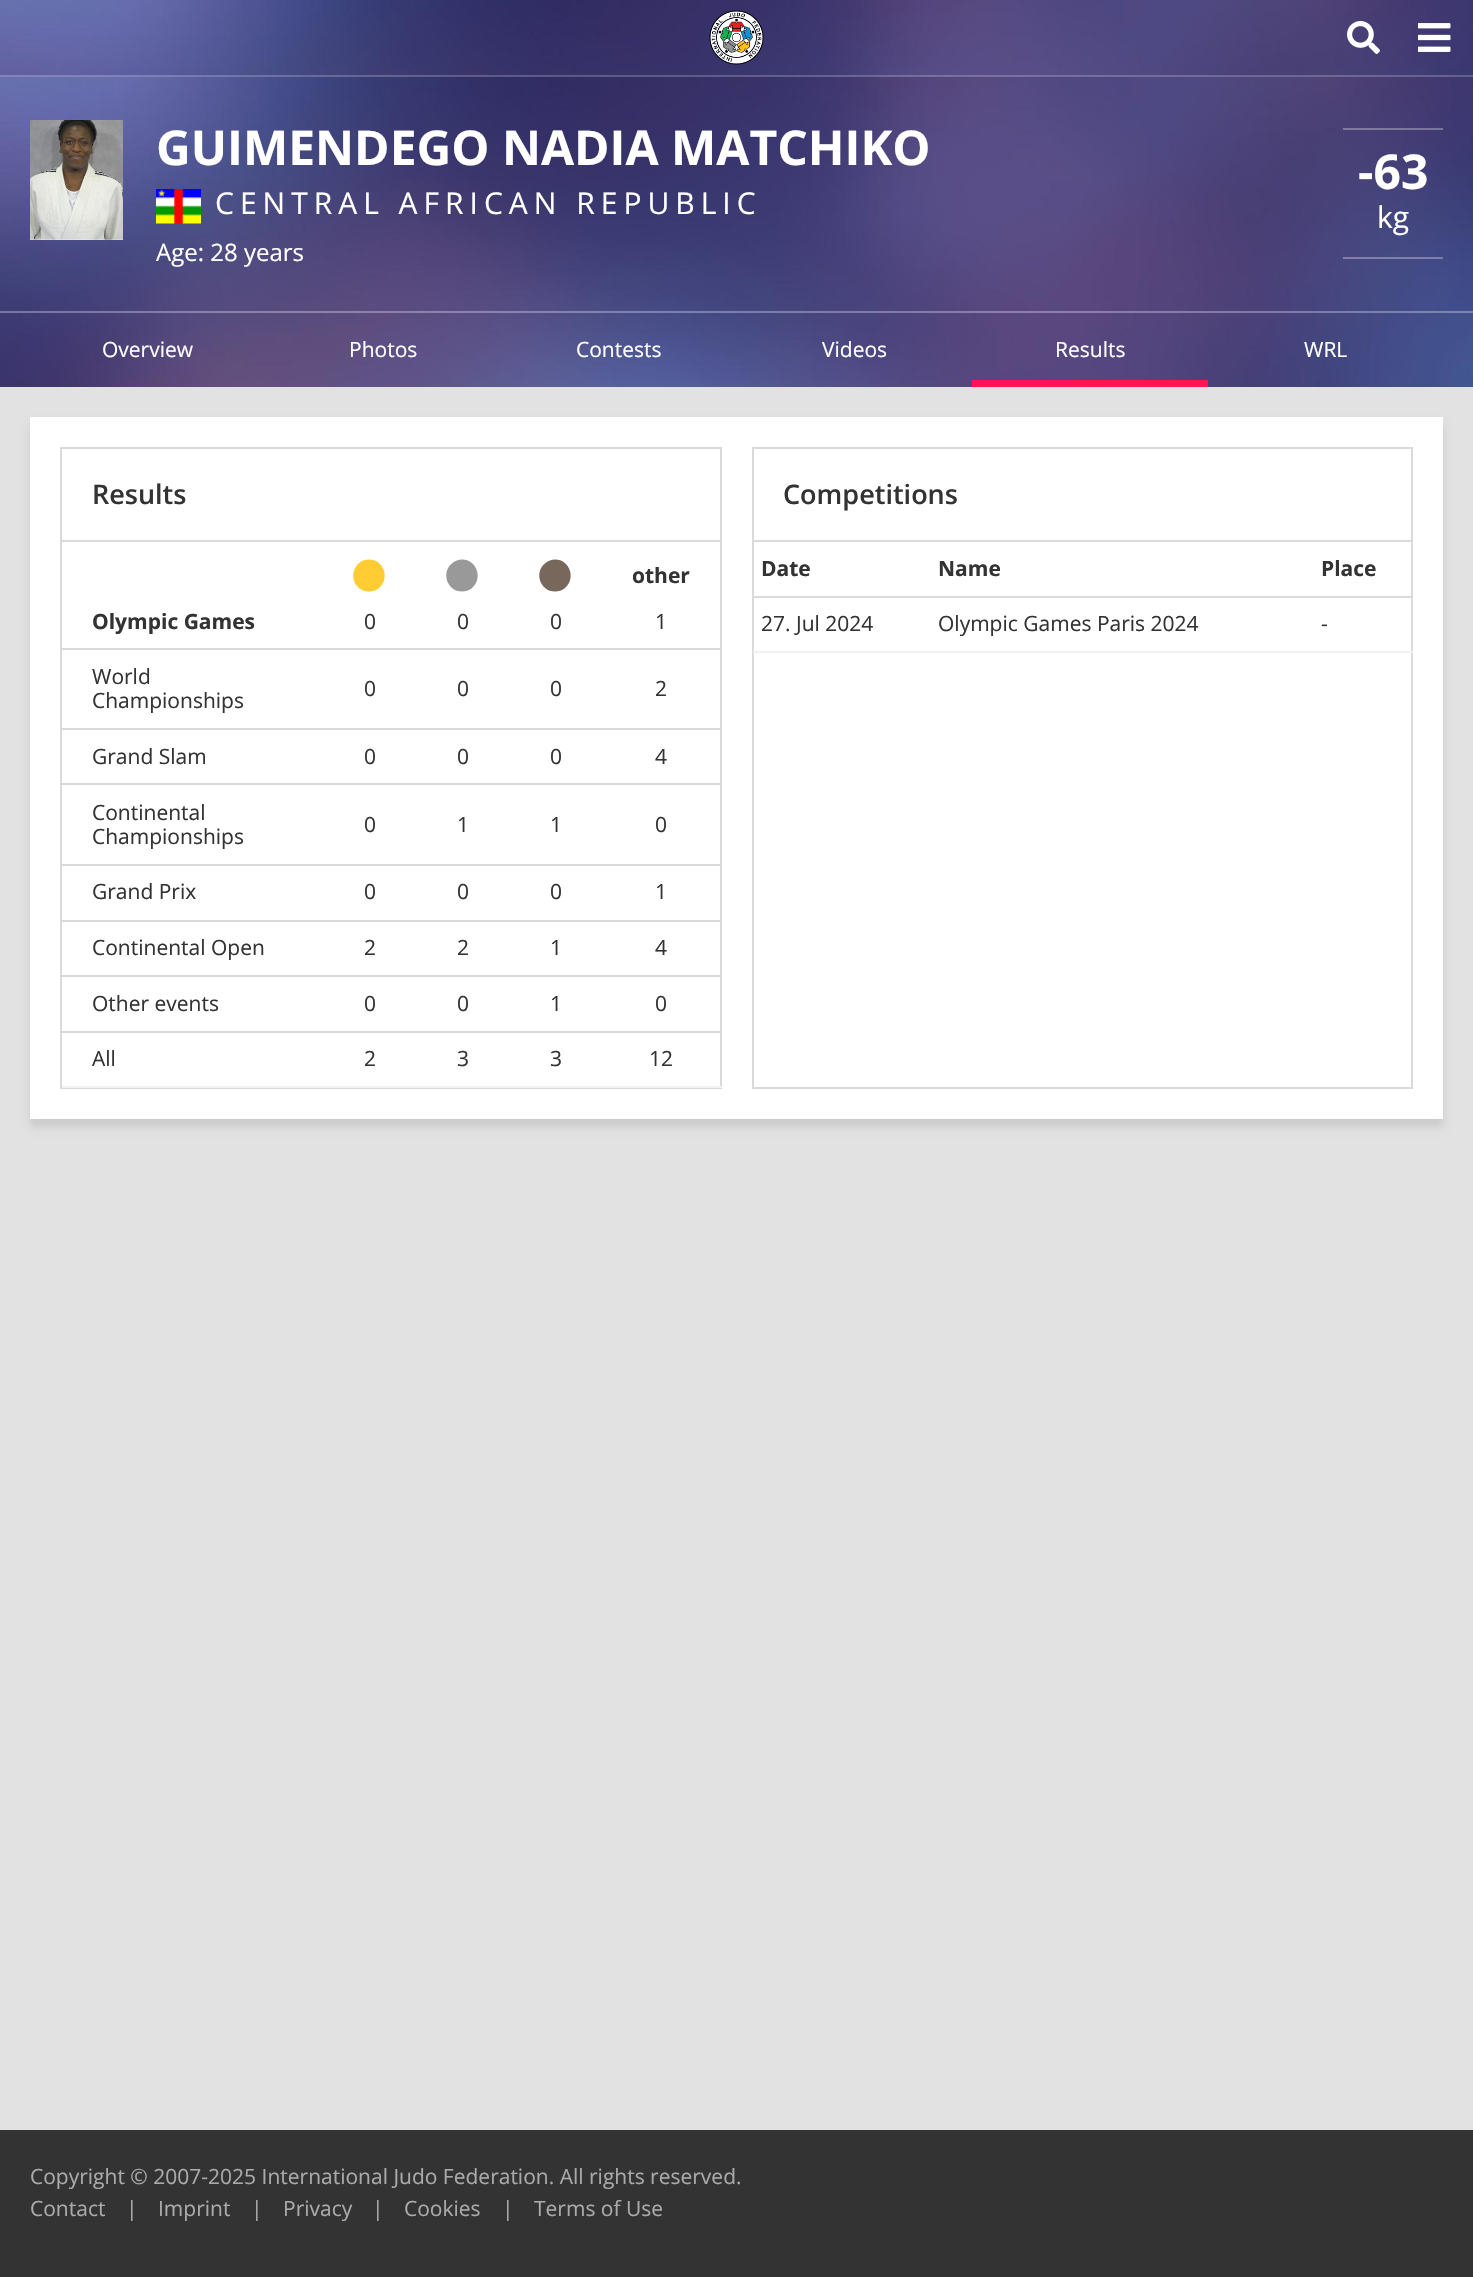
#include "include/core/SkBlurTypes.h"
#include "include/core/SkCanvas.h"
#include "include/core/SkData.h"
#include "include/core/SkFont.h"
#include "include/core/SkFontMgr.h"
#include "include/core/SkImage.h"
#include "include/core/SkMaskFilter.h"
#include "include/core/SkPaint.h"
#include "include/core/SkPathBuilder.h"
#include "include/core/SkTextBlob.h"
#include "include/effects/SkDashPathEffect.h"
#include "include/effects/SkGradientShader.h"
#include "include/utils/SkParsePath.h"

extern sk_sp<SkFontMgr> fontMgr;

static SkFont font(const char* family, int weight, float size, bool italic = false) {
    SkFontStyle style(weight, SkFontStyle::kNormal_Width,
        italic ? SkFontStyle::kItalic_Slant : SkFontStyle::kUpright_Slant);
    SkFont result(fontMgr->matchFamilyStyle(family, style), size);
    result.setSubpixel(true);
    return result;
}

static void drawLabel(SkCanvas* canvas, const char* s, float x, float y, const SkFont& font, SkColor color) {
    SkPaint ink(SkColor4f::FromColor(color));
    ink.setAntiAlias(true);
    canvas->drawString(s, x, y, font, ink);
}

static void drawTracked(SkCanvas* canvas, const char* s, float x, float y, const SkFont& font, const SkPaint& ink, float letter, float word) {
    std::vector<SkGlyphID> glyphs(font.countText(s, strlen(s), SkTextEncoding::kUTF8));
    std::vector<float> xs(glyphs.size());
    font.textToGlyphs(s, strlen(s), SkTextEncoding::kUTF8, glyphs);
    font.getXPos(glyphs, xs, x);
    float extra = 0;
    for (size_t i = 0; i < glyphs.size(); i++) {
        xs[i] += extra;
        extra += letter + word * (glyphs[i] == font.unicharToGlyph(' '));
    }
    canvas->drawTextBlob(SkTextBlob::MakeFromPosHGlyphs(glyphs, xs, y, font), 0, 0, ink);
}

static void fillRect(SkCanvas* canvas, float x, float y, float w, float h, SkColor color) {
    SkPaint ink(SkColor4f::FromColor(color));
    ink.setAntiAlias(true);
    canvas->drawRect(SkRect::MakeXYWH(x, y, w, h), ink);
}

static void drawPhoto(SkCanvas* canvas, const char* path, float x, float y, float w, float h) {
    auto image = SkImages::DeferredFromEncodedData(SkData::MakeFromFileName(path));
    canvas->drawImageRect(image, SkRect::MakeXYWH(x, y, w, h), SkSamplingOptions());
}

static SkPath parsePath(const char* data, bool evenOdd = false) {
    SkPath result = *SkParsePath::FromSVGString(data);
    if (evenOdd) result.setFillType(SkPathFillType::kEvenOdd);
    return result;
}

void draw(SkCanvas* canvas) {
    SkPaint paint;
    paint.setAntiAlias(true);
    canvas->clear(0xFFE2E2E2);
    drawPhoto(canvas, "assets/img5.png", 0, 76, 1473, 311);
    drawPhoto(canvas, "assets/img1.png", 0, 0, 1473, 77);
    fillRect(canvas, 0, 75, 1473, 2, 0x33FFFFFF);
    drawPhoto(canvas, "assets/img2.png", 709, 10, 55, 55);
    drawPhoto(canvas, "assets/img3.png", 1347, 21, 33, 33);
    drawPhoto(canvas, "assets/img4.png", 1418, 23, 33, 29);
    drawPhoto(canvas, "assets/img6.png", 30, 120, 93, 120);
    SkFont font1 = font("Open Sans", 700, 48);
    drawLabel(canvas, "GUIMENDEGO NADIA MATCHIKO", 156, 165, font1, 0xFFFFFFFF);
    drawPhoto(canvas, "assets/img7.png", 156, 189, 45, 35);
    SkFont font2 = font("Open Sans", 400, 30);
    paint.setColor(0xFFFFFFFF);
    drawTracked(canvas, "CENTRAL AFRICAN REPUBLIC", 215, 214, font2, paint, 6, 0);
    SkFont font3 = font("Open Sans", 400, 24);
    drawLabel(canvas, "Age: 28 years", 156, 261, font3, 0xFFFFFFFF);
    fillRect(canvas, 1343, 128, 100, 2, 0x4DFFFFFF);
    fillRect(canvas, 1343, 257, 100, 2, 0x4DFFFFFF);
    drawLabel(canvas, "-63", 1358, 189, font1, 0xFFFFFFFF);
    drawLabel(canvas, "kg", 1377, 228, font2, 0xFFFFFFFF);
    fillRect(canvas, 0, 311, 1473, 2, 0x4DFFFFFF);
    SkFont font4 = font("Open Sans", 400, 21);
    drawLabel(canvas, "Overview", 102, 357, font4, 0xFFFFFFFF);
    drawLabel(canvas, "Photos", 349, 357, font4, 0xFFFFFFFF);
    drawLabel(canvas, "Contests", 576, 357, font4, 0xFFFFFFFF);
    drawLabel(canvas, "Videos", 822, 357, font4, 0xFFFFFFFF);
    drawLabel(canvas, "Results", 1055, 357, font4, 0xFFFFFFFF);
    fillRect(canvas, 972, 380, 236, 7, 0xFFFF1553);
    drawLabel(canvas, "WRL", 1304, 357, font4, 0xFFFFFFFF);
    paint.setColor(0x1A000000);
    paint.setMaskFilter(SkMaskFilter::MakeBlur(kNormal_SkBlurStyle, 4));
    canvas->drawRect(SkRect::MakeXYWH(30, 425, 1413, 702), paint);
    paint.setMaskFilter(nullptr);
    fillRect(canvas, 30, 417, 1413, 702, 0xFFFFFFFF);
    paint.setStroke(true);
    paint.setStrokeWidth(2);
    paint.setColor(0xFFDADADA);
    canvas->drawRect(SkRect::MakeXYWH(61, 448, 660, 640), paint);
    fillRect(canvas, 62, 540, 658, 2, 0xFFDADADA);
    SkFont font5 = font("Open Sans", 600, 27);
    drawLabel(canvas, "Results", 92, 504, font5, 0xFF333333);
    paint.setStroke(false);
    paint.setColor(0xFFFFCC33);
    canvas->drawPath(parsePath("M369 559.5C354 559.5 347.5 579 359.5 588.5C362 590.5 365.5 591.5 369 591.5C372.5 591.5 376 590.5 378.5 588.5C390.5 579 384 559.5 369 559.5Z"), paint);
    paint.setColor(0xFF999999);
    canvas->drawPath(parsePath("M462 559.5C458.5 559.5 455 561 452.5 563C440.5 572 447 591.5 462 591.5C465.5 591.5 469 590.5 471.5 588.5C483.5 579 477 559.5 462 559.5Z"), paint);
    paint.setColor(0xFF78685B);
    canvas->drawPath(parsePath("M555 559.5C551.5 559.5 548 561 545.5 563C533.5 572 540 591.5 555 591.5C558.5 591.5 562 590.5 564.5 588.5C576.5 579 570 559.5 555 559.5Z"), paint);
    SkFont font6 = font("Open Sans", 700, 21);
    drawLabel(canvas, "other", 632, 583, font6, 0xFF333333);
    drawLabel(canvas, "Olympic Games", 92, 629, font6, 0xFF333333);
    drawLabel(canvas, "0", 364, 629, font4, 0xFF333333);
    drawLabel(canvas, "0", 457, 629, font4, 0xFF333333);
    drawLabel(canvas, "0", 550, 629, font4, 0xFF333333);
    drawLabel(canvas, "1", 655, 629, font4, 0xFF333333);
    drawLabel(canvas, "World", 92, 684, font4, 0xFF333333);
    drawLabel(canvas, "Championships", 92, 708, font4, 0xFF333333);
    drawLabel(canvas, "0", 364, 696, font4, 0xFF333333);
    drawLabel(canvas, "0", 457, 696, font4, 0xFF333333);
    drawLabel(canvas, "0", 550, 696, font4, 0xFF333333);
    fillRect(canvas, 62, 648, 660, 2, 0xFFDADADA);
    drawLabel(canvas, "2", 655, 696, font4, 0xFF333333);
    drawLabel(canvas, "Grand Slam", 92, 764, font4, 0xFF333333);
    drawLabel(canvas, "0", 364, 764, font4, 0xFF333333);
    drawLabel(canvas, "0", 457, 764, font4, 0xFF333333);
    drawLabel(canvas, "0", 550, 764, font4, 0xFF333333);
    fillRect(canvas, 62, 728, 660, 2, 0xFFDADADA);
    drawLabel(canvas, "4", 655, 764, font4, 0xFF333333);
    drawLabel(canvas, "Continental", 92, 820, font4, 0xFF333333);
    drawLabel(canvas, "Championships", 92, 844, font4, 0xFF333333);
    drawLabel(canvas, "0", 364, 832, font4, 0xFF333333);
    drawLabel(canvas, "1", 457, 832, font4, 0xFF333333);
    drawLabel(canvas, "1", 550, 832, font4, 0xFF333333);
    fillRect(canvas, 62, 783, 660, 2, 0xFFDADADA);
    drawLabel(canvas, "0", 655, 832, font4, 0xFF333333);
    drawLabel(canvas, "Grand Prix", 92, 899, font4, 0xFF333333);
    drawLabel(canvas, "0", 364, 899, font4, 0xFF333333);
    drawLabel(canvas, "0", 457, 899, font4, 0xFF333333);
    drawLabel(canvas, "0", 550, 899, font4, 0xFF333333);
    fillRect(canvas, 62, 864, 660, 2, 0xFFDADADA);
    drawLabel(canvas, "1", 655, 899, font4, 0xFF333333);
    drawLabel(canvas, "Continental Open", 92, 955, font4, 0xFF333333);
    drawLabel(canvas, "2", 364, 955, font4, 0xFF333333);
    drawLabel(canvas, "2", 457, 955, font4, 0xFF333333);
    drawLabel(canvas, "1", 550, 955, font4, 0xFF333333);
    fillRect(canvas, 62, 920, 660, 2, 0xFFDADADA);
    drawLabel(canvas, "4", 655, 955, font4, 0xFF333333);
    drawLabel(canvas, "Other events", 92, 1011, font4, 0xFF333333);
    drawLabel(canvas, "0", 364, 1011, font4, 0xFF333333);
    drawLabel(canvas, "0", 457, 1011, font4, 0xFF333333);
    drawLabel(canvas, "1", 550, 1011, font4, 0xFF333333);
    fillRect(canvas, 62, 975, 660, 2, 0xFFDADADA);
    drawLabel(canvas, "0", 655, 1011, font4, 0xFF333333);
    drawLabel(canvas, "All", 92, 1066, font4, 0xFF333333);
    drawLabel(canvas, "2", 364, 1066, font4, 0xFF333333);
    drawLabel(canvas, "3", 457, 1066, font4, 0xFF333333);
    drawLabel(canvas, "3", 550, 1066, font4, 0xFF333333);
    fillRect(canvas, 62, 1031, 660, 2, 0xFFDADADA);
    fillRect(canvas, 62, 1086, 660, 2, 0xFFF2F2F2);
    drawLabel(canvas, "12", 649, 1066, font4, 0xFF333333);
    paint.setStroke(true);
    paint.setColor(0xFFDADADA);
    canvas->drawRect(SkRect::MakeXYWH(753, 448, 659, 640), paint);
    fillRect(canvas, 753, 540, 659, 2, 0xFFDADADA);
    drawLabel(canvas, "Competitions", 783, 504, font5, 0xFF333333);
    drawLabel(canvas, "Date", 761, 576, font6, 0xFF333333);
    drawLabel(canvas, "Name", 938, 576, font6, 0xFF333333);
    drawLabel(canvas, "Place", 1321, 576, font6, 0xFF333333);
    drawLabel(canvas, "27. Jul 2024", 761, 631, font4, 0xFF333333);
    drawLabel(canvas, "Olympic Games Paris 2024", 938, 631, font4, 0xFF333333);
    fillRect(canvas, 753, 596, 660, 2, 0xFFDADADA);
    fillRect(canvas, 753, 651, 660, 2, 0xFFF2F2F2);
    drawLabel(canvas, "-", 1321, 631, font4, 0xFF333333);
    fillRect(canvas, 0, 2130, 1473, 147, 0xFF333333);
    drawLabel(canvas, "Copyright © 2007-2025 International Judo Federation. All rights reserved.", 30, 2184, font4, 0xFFAAAAAA);
    drawLabel(canvas, "Contact", 30, 2216, font4, 0xFFAAAAAA);
    drawLabel(canvas, "|", 126, 2216, font4, 0xFFAAAAAA);
    drawLabel(canvas, "Imprint", 158, 2216, font4, 0xFFAAAAAA);
    drawLabel(canvas, "|", 251, 2216, font4, 0xFFAAAAAA);
    drawLabel(canvas, "Privacy", 283, 2216, font4, 0xFFAAAAAA);
    drawLabel(canvas, "|", 372, 2216, font4, 0xFFAAAAAA);
    drawLabel(canvas, "Cookies", 404, 2216, font4, 0xFFAAAAAA);
    drawLabel(canvas, "|", 502, 2216, font4, 0xFFAAAAAA);
    drawLabel(canvas, "Terms of Use", 534, 2216, font4, 0xFFAAAAAA);
}
